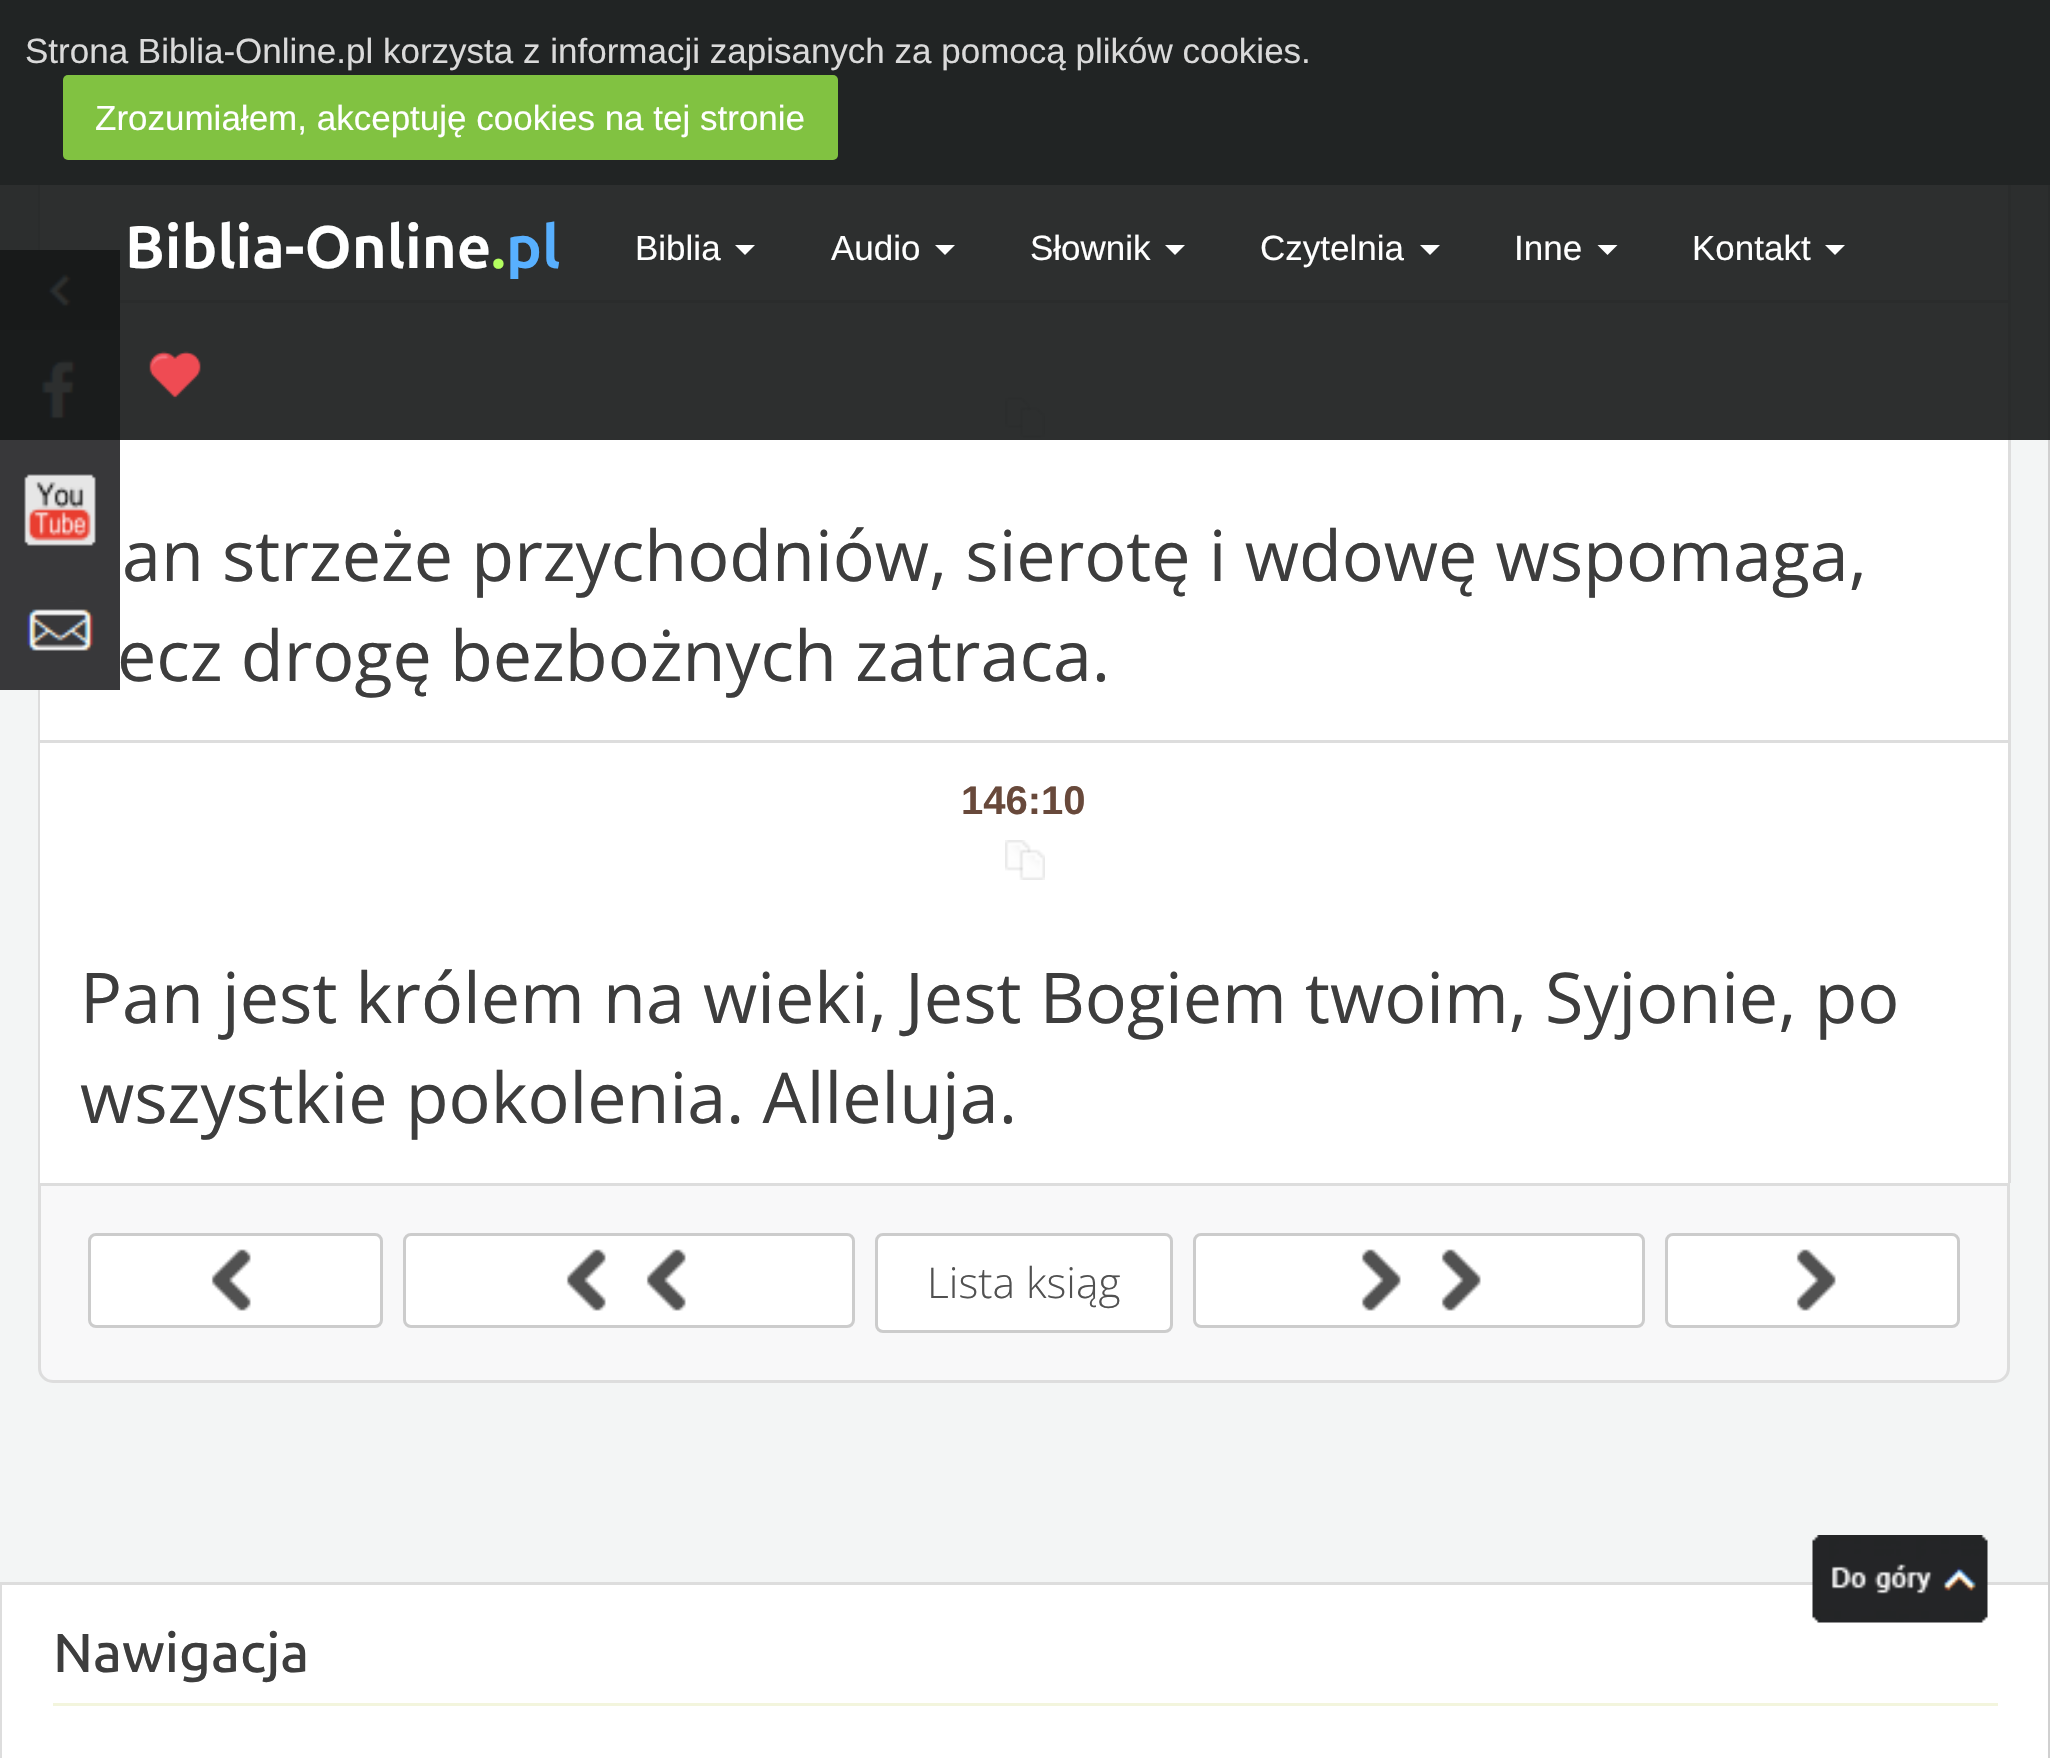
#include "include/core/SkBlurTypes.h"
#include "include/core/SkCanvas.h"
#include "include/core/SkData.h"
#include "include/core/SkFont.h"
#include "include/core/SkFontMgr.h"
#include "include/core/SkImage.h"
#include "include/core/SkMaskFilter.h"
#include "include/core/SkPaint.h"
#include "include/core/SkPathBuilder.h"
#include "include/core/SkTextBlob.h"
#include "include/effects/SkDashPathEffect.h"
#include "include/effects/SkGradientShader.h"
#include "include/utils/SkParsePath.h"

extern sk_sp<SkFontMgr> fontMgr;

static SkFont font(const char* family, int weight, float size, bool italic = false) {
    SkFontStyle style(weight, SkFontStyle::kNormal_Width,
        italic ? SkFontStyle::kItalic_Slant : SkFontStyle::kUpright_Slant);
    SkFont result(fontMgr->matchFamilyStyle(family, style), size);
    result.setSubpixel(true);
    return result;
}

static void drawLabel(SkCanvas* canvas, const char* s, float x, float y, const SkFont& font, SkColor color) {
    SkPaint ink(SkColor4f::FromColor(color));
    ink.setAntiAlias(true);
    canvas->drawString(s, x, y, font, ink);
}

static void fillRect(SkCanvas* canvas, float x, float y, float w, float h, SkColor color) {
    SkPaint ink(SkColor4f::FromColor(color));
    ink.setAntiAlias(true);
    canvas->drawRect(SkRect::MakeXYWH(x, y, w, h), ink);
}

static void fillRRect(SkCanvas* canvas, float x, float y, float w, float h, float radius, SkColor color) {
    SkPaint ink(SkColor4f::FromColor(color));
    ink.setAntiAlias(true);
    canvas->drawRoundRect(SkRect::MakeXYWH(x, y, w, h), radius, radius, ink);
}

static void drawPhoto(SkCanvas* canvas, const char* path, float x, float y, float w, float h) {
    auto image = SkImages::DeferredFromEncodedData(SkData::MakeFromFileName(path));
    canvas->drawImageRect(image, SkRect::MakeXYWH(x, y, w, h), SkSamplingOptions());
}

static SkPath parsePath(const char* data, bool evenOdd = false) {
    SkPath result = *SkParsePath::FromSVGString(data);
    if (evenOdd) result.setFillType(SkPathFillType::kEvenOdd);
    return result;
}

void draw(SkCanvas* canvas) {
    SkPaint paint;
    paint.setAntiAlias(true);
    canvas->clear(0xFFF3F5F5);
    fillRect(canvas, 40, 185, 1968, 115, 0xFFFFFFFF);
    drawPhoto(canvas, "assets/img2.png", 0, 250, 120, 80);
    fillRect(canvas, 0, 330, 120, 29, 0xFF38383A);
    fillRect(canvas, 40, 465, 1968, 275, 0xFFFFFFFF);
    drawPhoto(canvas, "assets/img3.png", 0, 359, 120, 243);
    fillRect(canvas, 2048, 185, 2, 1573, 0xFFD0D0D0);
    fillRect(canvas, 2008, 185, 3, 115, 0xFFDDDDDD);
    fillRect(canvas, 38, 185, 2, 65, 0xFFDDDDDD);
    fillRect(canvas, 120, 300, 1890, 3, 0xFFDDDDDD);
    fillRect(canvas, 2008, 300, 3, 440, 0xFFDDDDDD);
    fillRect(canvas, 120, 303, 1888, 162, 0xFFFFFFFF);
    drawPhoto(canvas, "assets/img5.png", 1005, 397, 40, 41);
    fillRect(canvas, 0, 185, 2050, 255, 0xE6161818);
    fillRect(canvas, 0, 0, 2050, 185, 0xFF212424);
    SkFont font1 = font("Liberation Sans", 400, 35);
    drawLabel(canvas, "Strona Biblia-Online.pl korzysta z informacji zapisanych za pomocą plików cookies.", 25, 63, font1, 0xFFDADADA);
    fillRRect(canvas, 63, 75, 775, 85, 5, 0xFF81C241);
    drawLabel(canvas, "Zrozumiałem, akceptuję cookies na tej stronie", 95, 130, font1, 0xFFFFFFFF);
    SkFont font2 = font("Ubuntu", 700, 60);
    drawLabel(canvas, "Biblia-Online", 125, 268, font2, 0xFFFFFFFF);
    drawLabel(canvas, ".", 491, 268, font2, 0xFFB4FF60);
    drawLabel(canvas, "pl", 506, 268, font2, 0xFF58B0FF);
    drawLabel(canvas, "Biblia", 635, 260, font1, 0xFFFFFFFF);
    paint.setColor(0xFFFFFFFF);
    canvas->drawPath(parsePath("M735 245H755L745 255Z"), paint);
    drawLabel(canvas, "Audio", 831, 260, font1, 0xFFFFFFFF);
    canvas->drawPath(parsePath("M935 245H955L945 255Z"), paint);
    drawLabel(canvas, "Słownik", 1030, 260, font1, 0xFFFFFFFF);
    canvas->drawPath(parsePath("M1165 245H1185L1175 255Z"), paint);
    drawLabel(canvas, "Czytelnia", 1260, 260, font1, 0xFFFFFFFF);
    canvas->drawPath(parsePath("M1420 245H1440L1430 255Z"), paint);
    drawLabel(canvas, "Inne", 1514, 260, font1, 0xFFFFFFFF);
    canvas->drawPath(parsePath("M1597.5 245H1617.5L1607.5 255Z"), paint);
    drawLabel(canvas, "Kontakt", 1692, 260, font1, 0xFFFFFFFF);
    canvas->drawPath(parsePath("M1825 245H1845L1835 255Z"), paint);
    drawPhoto(canvas, "assets/img1.png", 149, 351, 52, 48);
    drawPhoto(canvas, "assets/img4.png", 0, 602, 120, 88);
    fillRect(canvas, 38, 690, 2, 50, 0xFFDDDDDD);
    SkFont font3 = font("Open Sans", 400, 70);
    drawLabel(canvas, "an strzeże przychodniów, sierotę i wdowę wspomaga,", 122, 581, font3, 0xFF3D3D3D);
    drawLabel(canvas, "ecz drogę bezbożnych zatraca.", 117, 681, font3, 0xFF3D3D3D);
    fillRect(canvas, 38, 740, 1972, 3, 0xFFDDDDDD);
    fillRect(canvas, 2008, 740, 3, 443, 0xFFDDDDDD);
    fillRect(canvas, 38, 740, 3, 443, 0xFFDDDDDD);
    fillRect(canvas, 40, 743, 1968, 440, 0xFFFFFFFF);
    SkFont font4 = font("Liberation Sans", 700, 40);
    drawLabel(canvas, "146:10", 961, 814, font4, 0xFF68493B);
    drawPhoto(canvas, "assets/img6.png", 1005, 840, 40, 40);
    drawLabel(canvas, "Pan jest królem na wieki, Jest Bogiem twoim, Syjonie, po", 80, 1023, font3, 0xFF3D3D3D);
    drawLabel(canvas, "wszystkie pokolenia. Alleluja.", 80, 1123, font3, 0xFF3D3D3D);
    paint.setColor(0xFFF8F8F9);
    canvas->drawPath(parsePath("M39.5 1184.5H2008.5V1368C2008.5 1375.5 2002.5 1381.5 1995 1381.5H53C45.5 1381.5 39.5 1375.5 39.5 1368Z"), paint);
    paint.setStroke(true);
    paint.setStrokeWidth(3);
    paint.setColor(0xFFDDDDDD);
    canvas->drawPath(parsePath("M39.5 1184.5H2008.5V1368C2008.5 1375.5 2002.5 1381.5 1995 1381.5H53C45.5 1381.5 39.5 1375.5 39.5 1368Z"), paint);
    paint.setStroke(false);
    paint.setColor(0xFFFFFFFF);
    canvas->drawRoundRect(SkRect::MakeXYWH(89.5f, 1234.5f, 292, 92), 6.5f, 6.5f, paint);
    paint.setStroke(true);
    paint.setColor(0xFFCCCCCC);
    canvas->drawRoundRect(SkRect::MakeXYWH(89.5f, 1234.5f, 292, 92), 6.5f, 6.5f, paint);
    drawPhoto(canvas, "assets/img7.png", 211, 1249, 40, 62);
    paint.setStroke(false);
    paint.setColor(0xFFFFFFFF);
    canvas->drawRoundRect(SkRect::MakeXYWH(404.5f, 1234.5f, 449, 92), 6.5f, 6.5f, paint);
    paint.setStroke(true);
    paint.setColor(0xFFCCCCCC);
    canvas->drawRoundRect(SkRect::MakeXYWH(404.5f, 1234.5f, 449, 92), 6.5f, 6.5f, paint);
    drawPhoto(canvas, "assets/img8.png", 566, 1249, 40, 62);
    drawPhoto(canvas, "assets/img7.png", 646, 1249, 40, 62);
    paint.setStroke(false);
    paint.setColor(0xFFFFFFFF);
    canvas->drawRoundRect(SkRect::MakeXYWH(876.5f, 1234.5f, 295, 97), 6.5f, 6.5f, paint);
    paint.setStroke(true);
    paint.setColor(0xFFCCCCCC);
    canvas->drawRoundRect(SkRect::MakeXYWH(876.5f, 1234.5f, 295, 97), 6.5f, 6.5f, paint);
    SkFont font5 = font("Open Sans", 300, 42.5f);
    drawLabel(canvas, "Lista ksiąg", 927, 1298, font5, 0xFF515151);
    paint.setStroke(false);
    paint.setColor(0xFFFFFFFF);
    canvas->drawRoundRect(SkRect::MakeXYWH(1194.5f, 1234.5f, 449, 92), 6.5f, 6.5f, paint);
    paint.setStroke(true);
    paint.setColor(0xFFCCCCCC);
    canvas->drawRoundRect(SkRect::MakeXYWH(1194.5f, 1234.5f, 449, 92), 6.5f, 6.5f, paint);
    drawPhoto(canvas, "assets/img9.png", 1361, 1249, 40, 62);
    drawPhoto(canvas, "assets/img10.png", 1441, 1249, 40, 62);
    paint.setStroke(false);
    paint.setColor(0xFFFFFFFF);
    canvas->drawRoundRect(SkRect::MakeXYWH(1666.5f, 1234.5f, 292, 92), 6.5f, 6.5f, paint);
    paint.setStroke(true);
    paint.setColor(0xFFCCCCCC);
    canvas->drawRoundRect(SkRect::MakeXYWH(1666.5f, 1234.5f, 292, 92), 6.5f, 6.5f, paint);
    drawPhoto(canvas, "assets/img10.png", 1796, 1249, 40, 62);
    fillRect(canvas, 2, 1585, 2046, 173, 0xFFFFFFFF);
    paint.setStroke(false);
    paint.setColor(0xFFDDDDDD);
    canvas->drawPath(parsePath("M0 1582H2048V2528C2048 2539 2039 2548 2028 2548H20C9 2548 0 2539 0 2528ZM2 1585H2048V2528C2048 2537 2039 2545 2028 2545H20C10 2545 2 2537 2 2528Z", true), paint);
    fillRect(canvas, 53, 1703, 1945, 3, 0xFFF3F5DD);
    SkFont font6 = font("Ubuntu", 500, 55);
    drawLabel(canvas, "Nawigacja", 53, 1672, font6, 0xFF3D3D3D);
    drawPhoto(canvas, "assets/img11.png", 1812, 1535, 176, 88);
}
